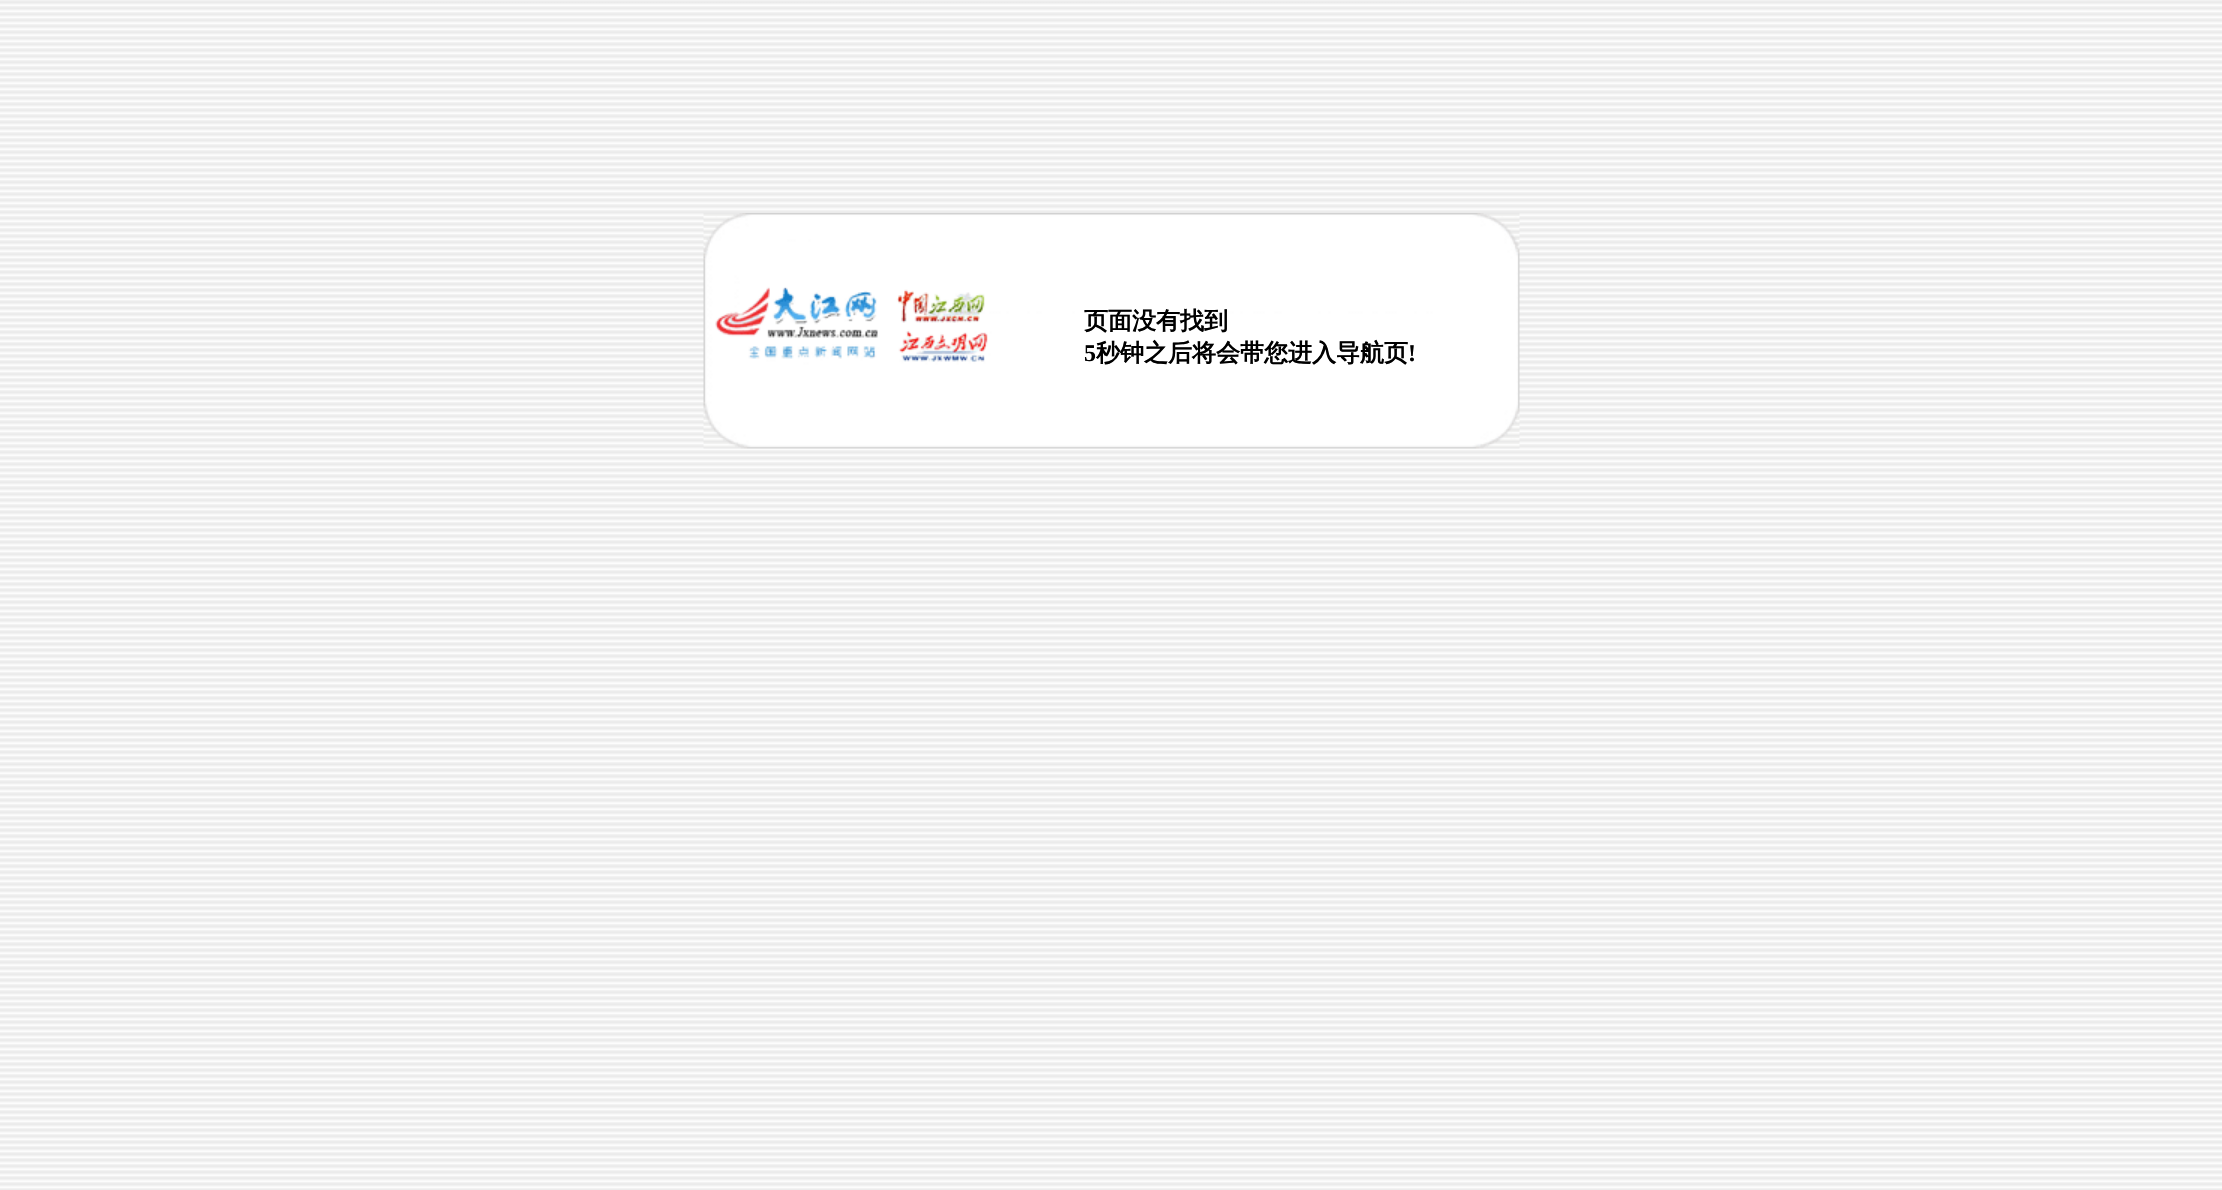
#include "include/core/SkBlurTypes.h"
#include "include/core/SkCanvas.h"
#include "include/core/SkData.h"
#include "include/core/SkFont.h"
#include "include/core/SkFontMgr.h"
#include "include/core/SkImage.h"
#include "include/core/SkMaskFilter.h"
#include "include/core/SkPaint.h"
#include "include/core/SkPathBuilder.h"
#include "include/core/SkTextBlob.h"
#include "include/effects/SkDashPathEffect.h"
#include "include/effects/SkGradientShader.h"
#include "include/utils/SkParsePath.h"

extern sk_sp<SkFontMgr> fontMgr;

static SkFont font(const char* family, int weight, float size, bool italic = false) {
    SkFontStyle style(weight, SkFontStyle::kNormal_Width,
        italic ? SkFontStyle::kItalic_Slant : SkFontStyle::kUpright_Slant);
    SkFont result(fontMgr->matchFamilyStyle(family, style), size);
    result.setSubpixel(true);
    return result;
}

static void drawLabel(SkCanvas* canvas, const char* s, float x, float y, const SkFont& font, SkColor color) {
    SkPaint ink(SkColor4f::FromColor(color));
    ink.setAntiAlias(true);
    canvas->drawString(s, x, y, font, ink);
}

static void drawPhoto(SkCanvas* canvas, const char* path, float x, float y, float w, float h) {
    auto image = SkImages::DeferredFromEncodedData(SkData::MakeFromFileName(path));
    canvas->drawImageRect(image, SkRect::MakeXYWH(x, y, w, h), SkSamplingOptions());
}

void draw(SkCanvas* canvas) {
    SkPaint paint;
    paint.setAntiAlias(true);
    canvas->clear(0xFFFFFFFF);
    drawPhoto(canvas, "assets/img1.png", 0, 0, 2222, 1190);
    drawPhoto(canvas, "assets/img2.png", 703, 213, 817, 236);
    SkFont font1 = font("WenQuanYi Zen Hei", 700, 24);
    drawLabel(canvas, "页面没有找到", 1084, 329, font1, 0xFF000000);
    SkFont font2 = font("Liberation Serif", 700, 24);
    drawLabel(canvas, "5", 1084, 361, font2, 0xFF000000);
    drawLabel(canvas, "秒钟之后将会带您进入导航页", 1096, 361, font1, 0xFF000000);
    drawLabel(canvas, "!", 1408, 361, font2, 0xFF000000);
}
